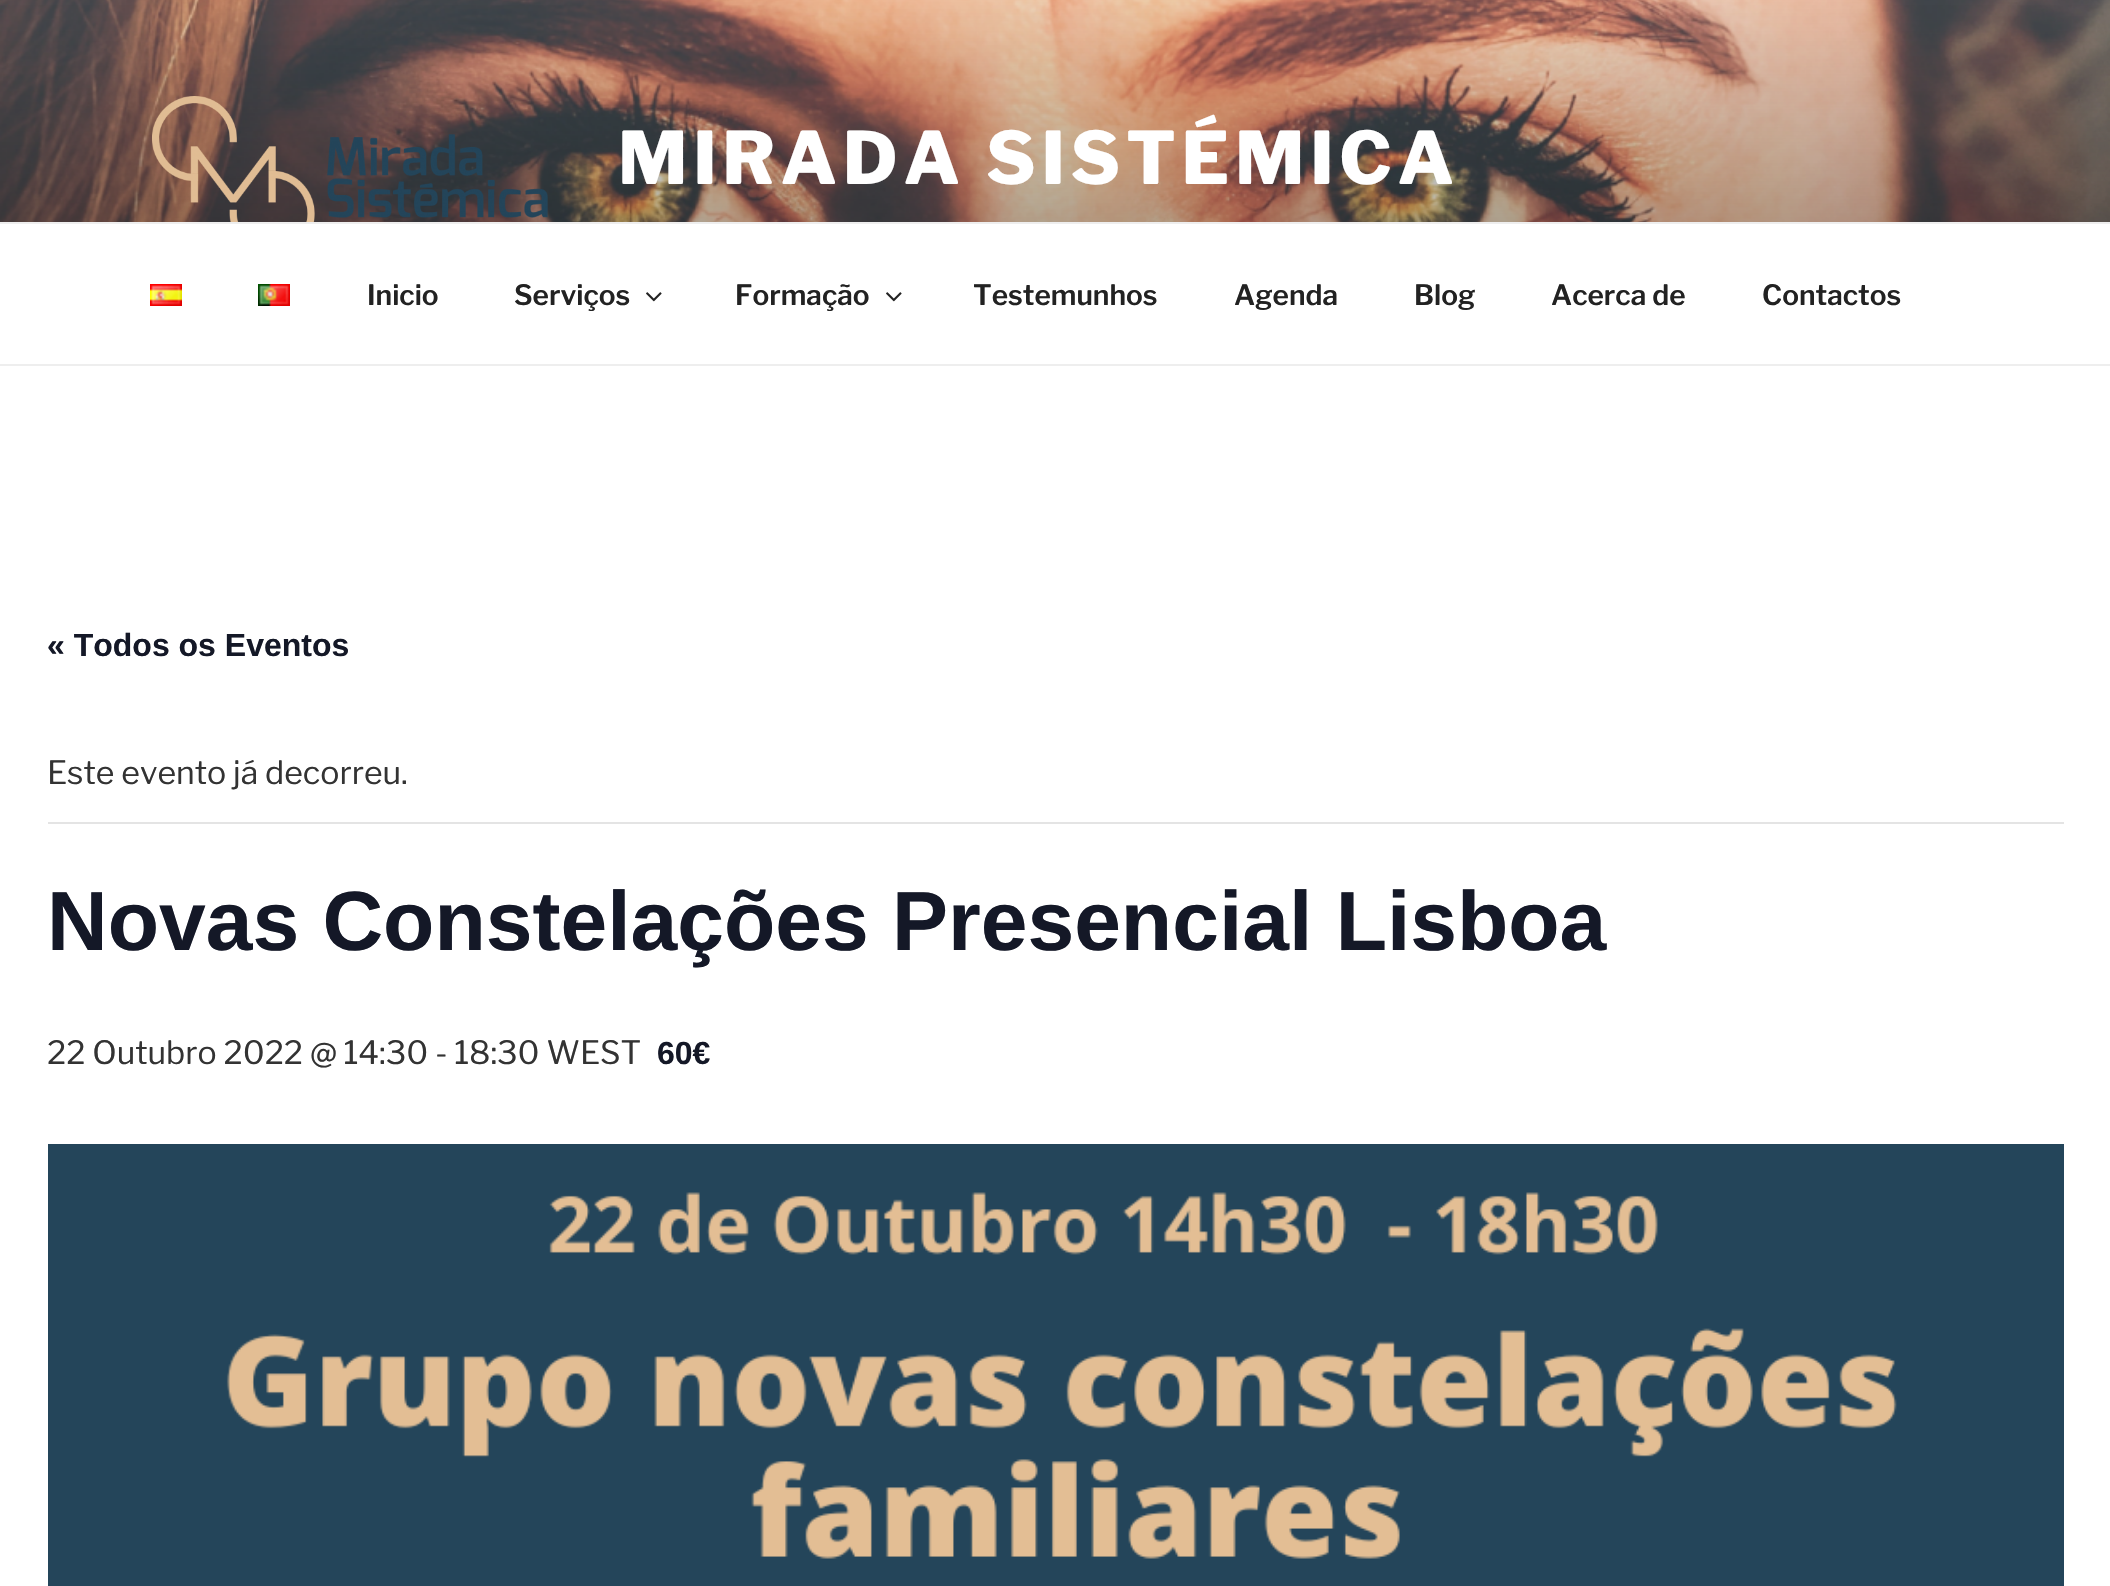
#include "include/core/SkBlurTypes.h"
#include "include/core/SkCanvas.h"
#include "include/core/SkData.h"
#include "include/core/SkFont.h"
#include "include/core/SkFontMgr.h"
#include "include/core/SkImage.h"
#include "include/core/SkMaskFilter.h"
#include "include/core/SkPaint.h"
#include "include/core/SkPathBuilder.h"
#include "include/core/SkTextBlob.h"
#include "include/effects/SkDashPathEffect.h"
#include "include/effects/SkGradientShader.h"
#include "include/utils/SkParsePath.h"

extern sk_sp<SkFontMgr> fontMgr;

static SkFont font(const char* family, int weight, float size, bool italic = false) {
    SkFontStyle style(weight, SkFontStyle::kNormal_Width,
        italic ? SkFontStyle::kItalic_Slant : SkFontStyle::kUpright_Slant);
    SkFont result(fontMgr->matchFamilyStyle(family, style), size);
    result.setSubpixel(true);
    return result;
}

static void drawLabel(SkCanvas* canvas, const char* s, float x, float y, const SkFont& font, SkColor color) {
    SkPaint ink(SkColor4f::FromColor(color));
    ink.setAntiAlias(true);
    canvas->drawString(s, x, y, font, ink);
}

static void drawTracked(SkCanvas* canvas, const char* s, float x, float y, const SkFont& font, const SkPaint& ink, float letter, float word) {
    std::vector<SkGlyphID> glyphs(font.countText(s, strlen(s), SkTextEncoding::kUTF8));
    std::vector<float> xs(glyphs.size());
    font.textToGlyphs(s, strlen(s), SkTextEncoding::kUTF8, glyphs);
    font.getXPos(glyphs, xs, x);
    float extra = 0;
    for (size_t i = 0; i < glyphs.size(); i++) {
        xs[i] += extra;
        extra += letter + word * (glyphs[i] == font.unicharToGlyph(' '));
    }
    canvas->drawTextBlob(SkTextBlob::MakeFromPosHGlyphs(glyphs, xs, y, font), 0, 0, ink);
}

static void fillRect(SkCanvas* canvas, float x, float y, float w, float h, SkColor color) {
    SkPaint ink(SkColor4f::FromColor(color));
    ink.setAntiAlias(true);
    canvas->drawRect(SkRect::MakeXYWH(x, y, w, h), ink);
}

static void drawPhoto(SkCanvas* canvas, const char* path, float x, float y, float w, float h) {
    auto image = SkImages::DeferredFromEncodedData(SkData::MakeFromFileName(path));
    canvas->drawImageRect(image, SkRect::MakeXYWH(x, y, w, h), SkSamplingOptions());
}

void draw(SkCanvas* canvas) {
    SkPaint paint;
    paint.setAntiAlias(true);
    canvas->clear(0xFFFFFFFF);
    drawPhoto(canvas, "assets/img1.png", 0, 0, 2110, 222);
    drawPhoto(canvas, "assets/img2.png", 152, 96, 396, 126);
    SkFont font1 = font("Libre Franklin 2", 100, 72);
    paint.setColor(0xFFFFFFFF);
    drawTracked(canvas, "MIRADA SISTÉMICA", 618, 184, font1, paint, 5.75f, 0);
    fillRect(canvas, 0, 222, 2110, 2, 0xFFEEEEEE);
    fillRect(canvas, 0, 364, 2110, 2, 0xFFEEEEEE);
    drawPhoto(canvas, "assets/img3.png", 150, 284, 32, 22);
    drawPhoto(canvas, "assets/img4.png", 258, 284, 32, 22);
    SkFont font2 = font("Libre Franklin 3", 100, 28);
    drawLabel(canvas, "Inicio", 367, 305, font2, 0xFF222222);
    drawLabel(canvas, "Serviços", 514, 305, font2, 0xFF222222);
    drawPhoto(canvas, "assets/img5.png", 646, 292, 16, 10);
    drawLabel(canvas, "Formação", 735, 305, font2, 0xFF222222);
    drawPhoto(canvas, "assets/img5.png", 886, 292, 16, 10);
    drawLabel(canvas, "Testemunhos", 973, 305, font2, 0xFF222222);
    drawLabel(canvas, "Agenda", 1234, 305, font2, 0xFF222222);
    drawLabel(canvas, "Blog", 1414, 305, font2, 0xFF222222);
    drawLabel(canvas, "Acerca de", 1551, 305, font2, 0xFF222222);
    drawLabel(canvas, "Contactos", 1762, 305, font2, 0xFF222222);
    SkFont font3 = font("Liberation Sans", 700, 32);
    drawLabel(canvas, "« Todos os Eventos", 47, 656, font3, 0xFF141827);
    fillRect(canvas, 48, 822, 2016, 2, 0xFFE4E4E4);
    SkFont font4 = font("Libre Franklin", 100, 32);
    drawLabel(canvas, "Este evento já decorreu.", 47, 784, font4, 0xFF333333);
    SkFont font5 = font("Liberation Sans", 700, 84);
    drawLabel(canvas, "Novas Constelações Presencial Lisboa", 47, 950, font5, 0xFF141827);
    drawLabel(canvas, "22 Outubro 2022 @ 14:30 - 18:30 WEST", 47, 1064, font4, 0xFF333333);
    drawLabel(canvas, "60€", 657, 1064, font3, 0xFF141827);
    drawPhoto(canvas, "assets/img6.png", 48, 1144, 2016, 442);
}
